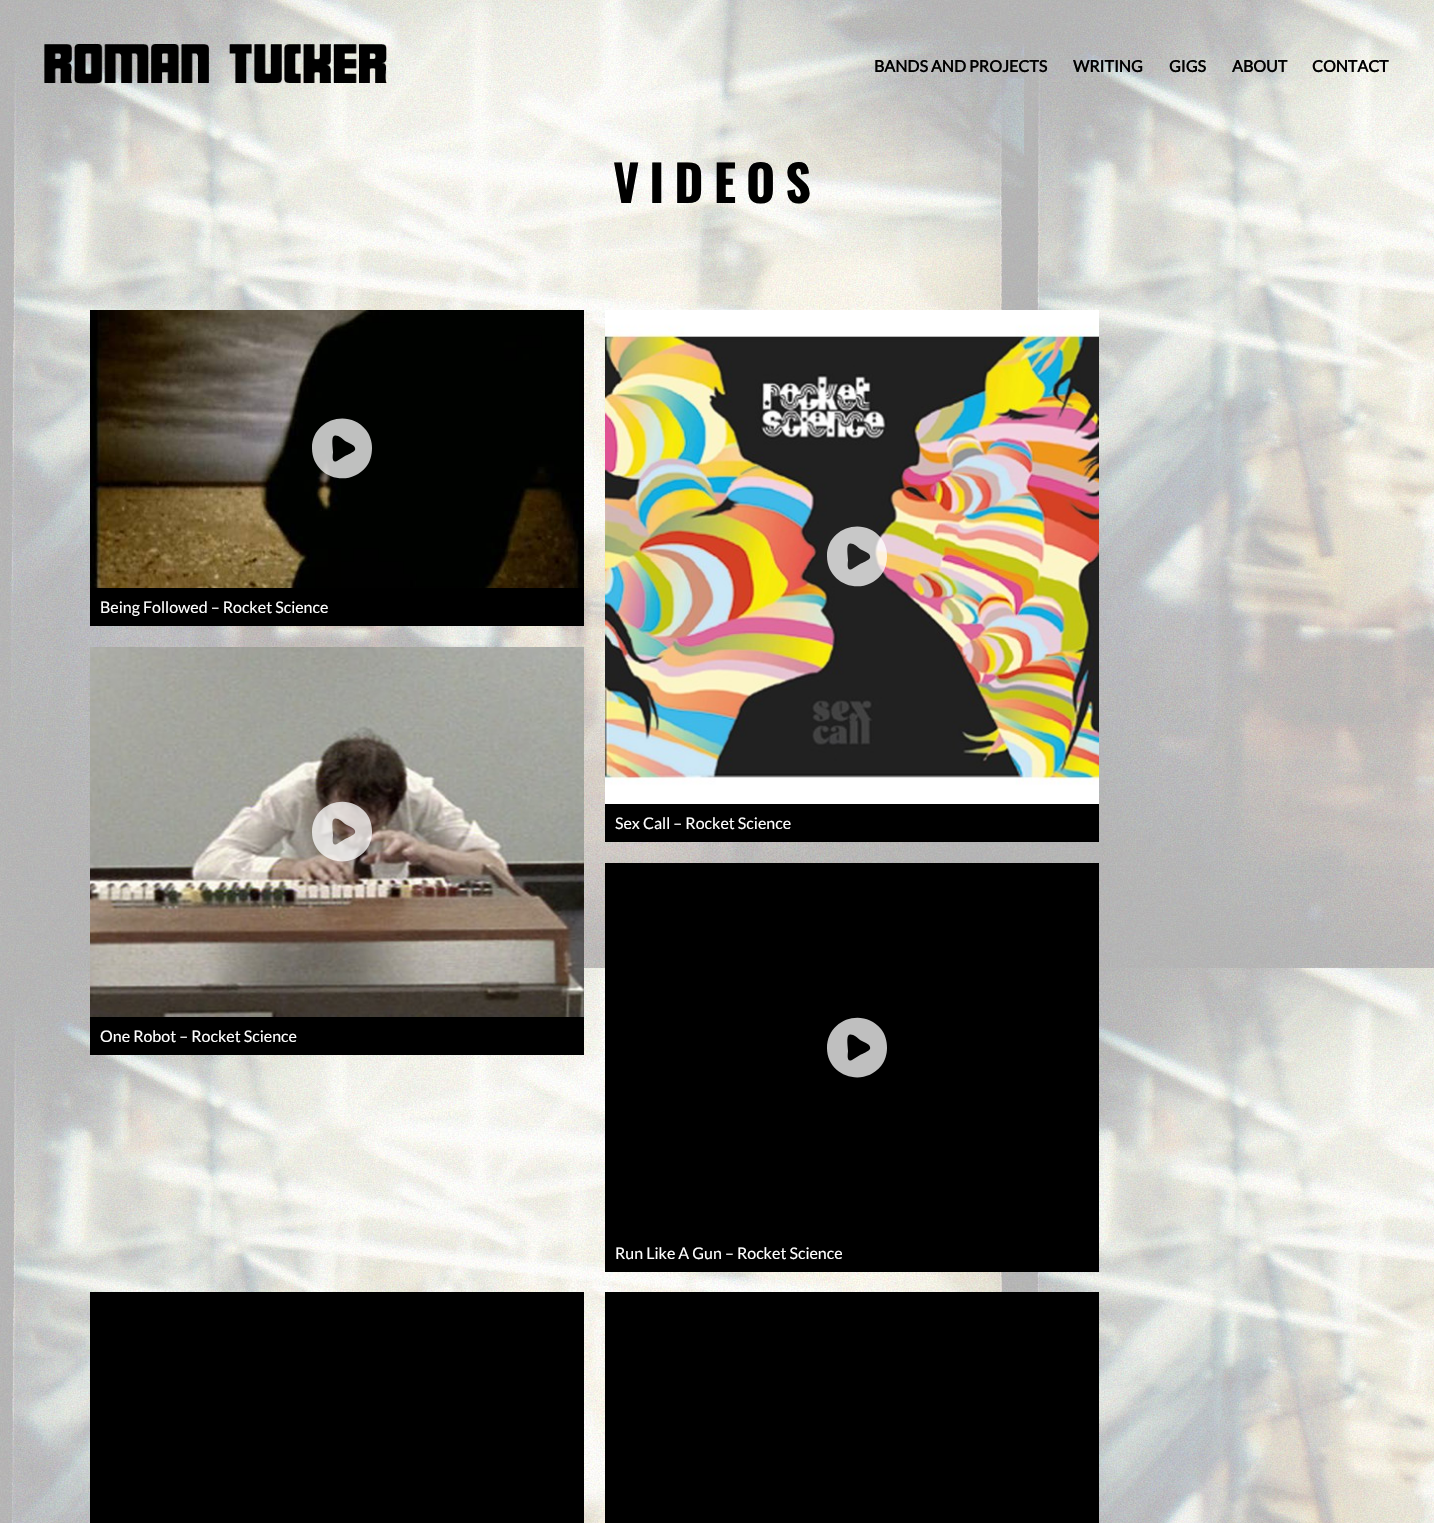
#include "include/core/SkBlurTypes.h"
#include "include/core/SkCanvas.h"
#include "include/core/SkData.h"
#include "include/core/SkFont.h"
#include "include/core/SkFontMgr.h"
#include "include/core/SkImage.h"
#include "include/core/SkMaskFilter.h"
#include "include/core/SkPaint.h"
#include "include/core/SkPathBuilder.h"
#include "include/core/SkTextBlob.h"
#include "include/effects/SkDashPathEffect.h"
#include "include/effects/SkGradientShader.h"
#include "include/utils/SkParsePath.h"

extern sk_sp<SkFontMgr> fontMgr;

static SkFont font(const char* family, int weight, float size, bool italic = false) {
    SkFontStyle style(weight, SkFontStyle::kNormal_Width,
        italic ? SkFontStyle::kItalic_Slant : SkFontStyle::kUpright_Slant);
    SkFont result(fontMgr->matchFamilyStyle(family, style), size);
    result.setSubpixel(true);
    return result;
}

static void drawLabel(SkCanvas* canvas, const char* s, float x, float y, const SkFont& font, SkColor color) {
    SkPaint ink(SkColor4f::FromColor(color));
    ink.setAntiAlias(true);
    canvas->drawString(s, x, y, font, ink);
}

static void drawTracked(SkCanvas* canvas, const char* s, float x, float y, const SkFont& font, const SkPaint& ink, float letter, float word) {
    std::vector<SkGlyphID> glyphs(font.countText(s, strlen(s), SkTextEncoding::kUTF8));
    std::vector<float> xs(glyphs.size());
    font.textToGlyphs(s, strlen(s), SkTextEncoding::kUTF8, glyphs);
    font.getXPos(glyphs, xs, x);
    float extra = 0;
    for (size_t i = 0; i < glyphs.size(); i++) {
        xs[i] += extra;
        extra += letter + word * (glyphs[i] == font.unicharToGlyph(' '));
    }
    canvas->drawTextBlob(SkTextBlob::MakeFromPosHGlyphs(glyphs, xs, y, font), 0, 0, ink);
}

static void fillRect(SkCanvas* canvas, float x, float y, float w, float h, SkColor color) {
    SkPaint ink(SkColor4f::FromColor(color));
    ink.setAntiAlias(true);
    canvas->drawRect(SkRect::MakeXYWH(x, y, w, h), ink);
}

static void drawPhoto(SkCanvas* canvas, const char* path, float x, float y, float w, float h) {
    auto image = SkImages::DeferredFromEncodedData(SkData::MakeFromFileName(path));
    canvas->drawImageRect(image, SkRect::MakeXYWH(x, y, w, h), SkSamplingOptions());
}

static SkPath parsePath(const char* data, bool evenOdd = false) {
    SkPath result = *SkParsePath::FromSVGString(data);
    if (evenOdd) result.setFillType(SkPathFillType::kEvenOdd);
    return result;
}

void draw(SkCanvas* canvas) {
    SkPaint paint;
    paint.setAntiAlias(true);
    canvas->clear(0xFFFFFFFF);
    drawPhoto(canvas, "assets/img1.png", 0, 0, 1434, 1523);
    drawPhoto(canvas, "assets/img2.png", 44, 44, 343, 40);
    SkFont font1 = font("Lato", 700, 16);
    drawLabel(canvas, "BANDS AND PROJECTS", 874, 72, font1, 0xFF000000);
    drawLabel(canvas, "WRITING", 1073, 72, font1, 0xFF000000);
    drawLabel(canvas, "GIGS", 1169, 72, font1, 0xFF000000);
    drawLabel(canvas, "ABOUT", 1232, 72, font1, 0xFF000000);
    drawLabel(canvas, "CONTACT", 1312, 72, font1, 0xFF000000);
    SkFont font2 = font("Oswald", 700, 50);
    paint.setColor(0xFF000000);
    drawTracked(canvas, "VIDEOS", 613, 203, font2, paint, 10, 0);
    fillRect(canvas, 90, 588, 494, 38, 0xFF000000);
    drawPhoto(canvas, "assets/img3.png", 90, 310, 494, 278);
    paint.setColor(0xBFFFFFFF);
    canvas->drawPath(parsePath("M312 448C312 420 348 408 366 430C370 435 372 442 372 448C372 455 370 462 366 467C348 489 312 477 312 448ZM334 436C331 437 333 449 333 452C333 454 331 464 337 461L345 456C347 455 354 452 355 450C356 447 353 445 351 444L345 441C343 439 337 434 334 436Z"), paint);
    SkFont font3 = font("Lato", 400, 16);
    drawLabel(canvas, "Being Followed – Rocket Science", 100, 613, font3, 0xFFFFFFFF);
    fillRect(canvas, 605, 804, 494, 38, 0xFF000000);
    drawPhoto(canvas, "assets/img4.png", 605, 310, 494, 494);
    canvas->drawPath(parsePath("M827 556C827 528 863 516 881 538C885 543 887 550 887 556C887 563 885 570 881 575C863 597 827 585 827 556ZM849 544C846 545 848 557 848 560C848 562 846 572 852 569L860 564C862 563 869 560 870 558C871 555 868 553 866 552L860 549C858 547 852 542 849 544Z"), paint);
    drawLabel(canvas, "Sex Call – Rocket Science", 615, 829, font3, 0xFFFFFFFF);
    fillRect(canvas, 90, 1017, 494, 38, 0xFF000000);
    drawPhoto(canvas, "assets/img5.png", 90, 647, 494, 370);
    canvas->drawPath(parsePath("M312 832C312 803 348 791 366 813C370 818 372 825 372 832C372 838 370 845 366 850C348 872 312 860 312 832ZM334 819C331 820 333 832 333 835C333 837 331 847 337 844L345 839C347 838 354 835 355 833C356 830 353 828 351 827L345 824C343 822 337 817 334 819Z"), paint);
    drawLabel(canvas, "One Robot – Rocket Science", 100, 1042, font3, 0xFFFFFFFF);
    fillRect(canvas, 605, 863, 494, 409, 0xFF000000);
    paint.setColor(0xFFBFBFBF);
    canvas->drawPath(parsePath("M827 1048C827 1019 863 1007 881 1029C885 1034 887 1041 887 1048C887 1054 885 1061 881 1066C863 1088 827 1076 827 1048ZM849 1035C846 1036 848 1048 848 1051C848 1053 846 1063 852 1060L860 1055C862 1054 869 1051 870 1049C871 1046 868 1044 866 1043L860 1040C858 1038 852 1033 849 1035Z"), paint);
    drawLabel(canvas, "Run Like A Gun – Rocket Science", 615, 1259, font3, 0xFFFFFFFF);
    fillRect(canvas, 90, 1292, 494, 231, 0xFF000000);
    fillRect(canvas, 605, 1292, 494, 231, 0xFF000000);
}
